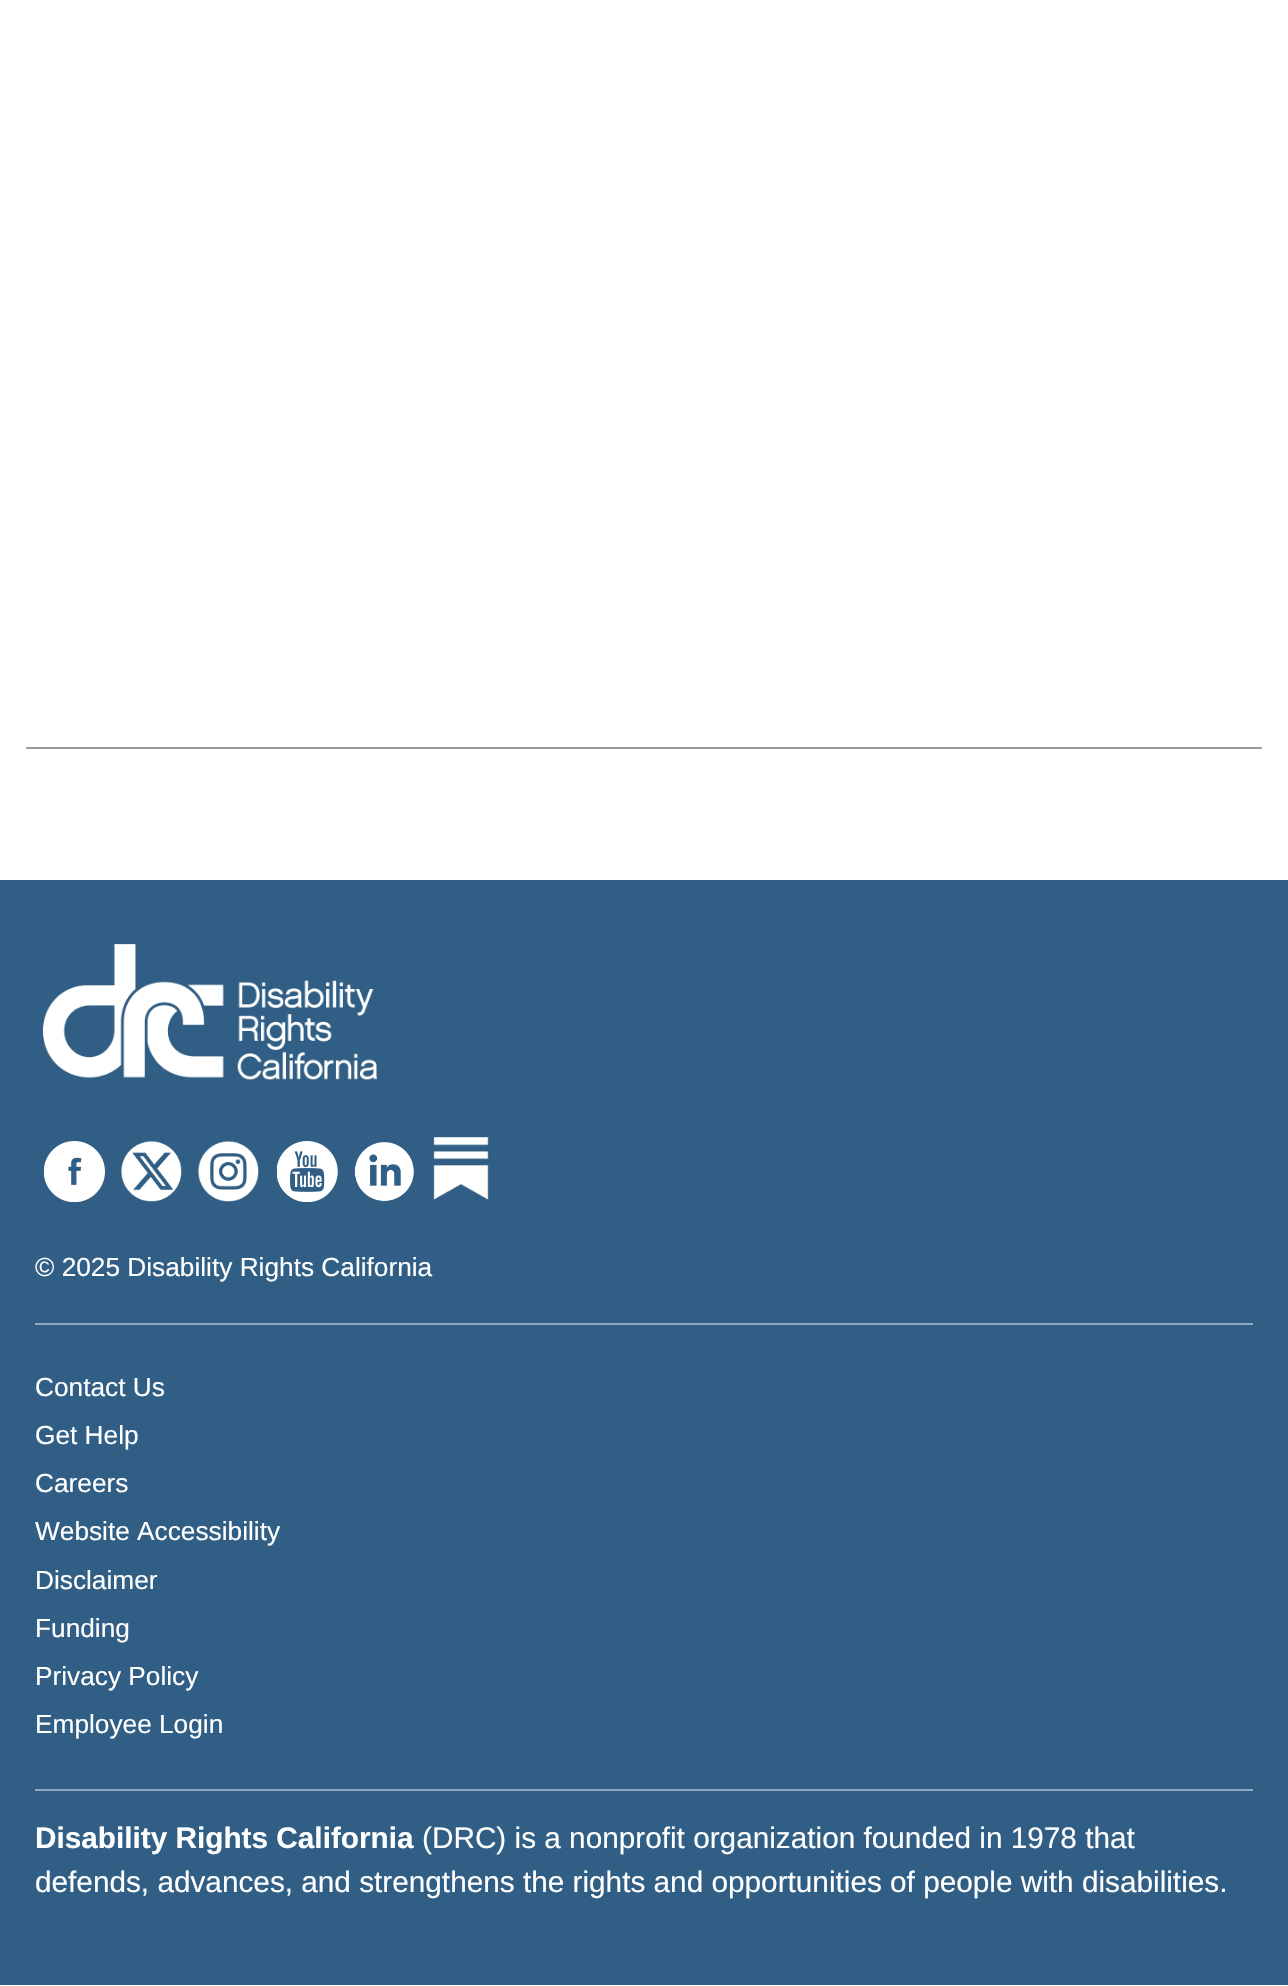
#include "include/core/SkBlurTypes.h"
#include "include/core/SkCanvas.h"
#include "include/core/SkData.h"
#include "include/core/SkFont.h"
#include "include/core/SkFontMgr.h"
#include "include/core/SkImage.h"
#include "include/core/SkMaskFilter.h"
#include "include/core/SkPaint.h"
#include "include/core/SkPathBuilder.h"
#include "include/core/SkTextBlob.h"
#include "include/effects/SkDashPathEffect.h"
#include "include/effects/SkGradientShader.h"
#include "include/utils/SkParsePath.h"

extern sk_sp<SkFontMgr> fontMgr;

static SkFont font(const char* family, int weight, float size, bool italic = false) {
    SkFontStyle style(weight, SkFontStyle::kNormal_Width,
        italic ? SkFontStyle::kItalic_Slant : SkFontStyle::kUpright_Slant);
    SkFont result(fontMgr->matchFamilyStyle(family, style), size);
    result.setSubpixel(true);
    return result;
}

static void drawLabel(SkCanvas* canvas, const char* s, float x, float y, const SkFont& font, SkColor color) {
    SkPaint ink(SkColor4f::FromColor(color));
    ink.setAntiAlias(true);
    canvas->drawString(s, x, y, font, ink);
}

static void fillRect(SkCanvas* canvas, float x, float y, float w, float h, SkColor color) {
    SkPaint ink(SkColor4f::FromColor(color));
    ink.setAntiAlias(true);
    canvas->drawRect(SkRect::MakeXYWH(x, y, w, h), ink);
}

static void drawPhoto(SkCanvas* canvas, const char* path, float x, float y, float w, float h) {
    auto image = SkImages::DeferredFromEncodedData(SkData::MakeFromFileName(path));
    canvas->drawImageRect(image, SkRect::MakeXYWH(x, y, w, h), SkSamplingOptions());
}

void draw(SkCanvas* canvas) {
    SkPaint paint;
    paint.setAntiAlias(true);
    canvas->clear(0xFFFFFFFF);
    fillRect(canvas, 26, 747, 1236, 2, 0xFF999999);
    fillRect(canvas, 0, 880, 1288, 1105, 0xFF305E84);
    fillRect(canvas, 35, 1323, 1218, 2, 0xFF8FA8BD);
    drawPhoto(canvas, "assets/img1.png", 43, 944, 334, 136);
    drawPhoto(canvas, "assets/img2.png", 44, 1141, 61, 61);
    drawPhoto(canvas, "assets/img3.png", 121, 1141, 61, 61);
    drawPhoto(canvas, "assets/img4.png", 197, 1140, 62, 62);
    drawPhoto(canvas, "assets/img5.png", 277, 1141, 61, 61);
    drawPhoto(canvas, "assets/img6.png", 354, 1142, 60, 60);
    drawPhoto(canvas, "assets/img7.png", 433, 1137, 56, 63);
    SkFont font1 = font("Liberation Sans", 400, 26.25f);
    drawLabel(canvas, "© 2025 Disability Rights California", 35, 1276, font1, 0xFFFFFFFF);
    fillRect(canvas, 35, 1789, 1218, 2, 0xFF8FA8BD);
    drawLabel(canvas, "Contact Us", 35, 1396, font1, 0xFFFFFFFF);
    drawLabel(canvas, "Get Help", 35, 1444, font1, 0xFFFFFFFF);
    drawLabel(canvas, "Careers", 35, 1492, font1, 0xFFFFFFFF);
    drawLabel(canvas, "Website Accessibility", 35, 1540, font1, 0xFFFFFFFF);
    drawLabel(canvas, "Disclaimer", 35, 1589, font1, 0xFFFFFFFF);
    drawLabel(canvas, "Funding", 35, 1637, font1, 0xFFFFFFFF);
    drawLabel(canvas, "Privacy Policy", 35, 1685, font1, 0xFFFFFFFF);
    drawLabel(canvas, "Employee Login", 35, 1733, font1, 0xFFFFFFFF);
    SkFont font2 = font("Liberation Sans", 700, 29.75f);
    drawLabel(canvas, "Disability Rights California", 35, 1848, font2, 0xFFFFFFFF);
    SkFont font3 = font("Liberation Sans", 400, 29.75f);
    drawLabel(canvas, "(DRC) is a nonprofit organization founded in 1978 that", 422, 1848, font3, 0xFFFFFFFF);
    drawLabel(canvas, "defends, advances, and strengthens the rights and opportunities of people with disabilities.", 35, 1892, font3, 0xFFFFFFFF);
}
